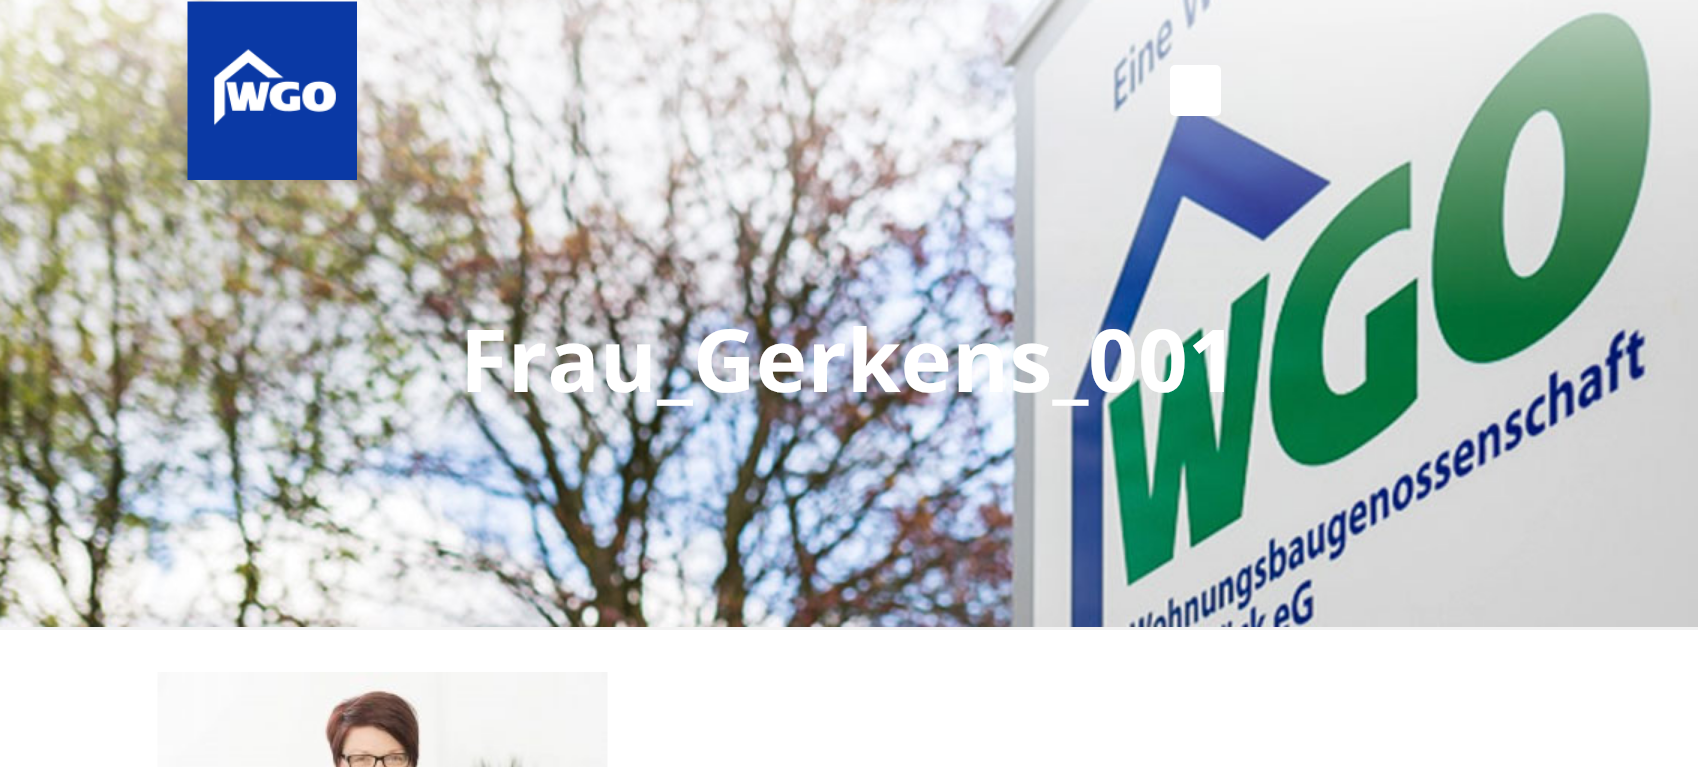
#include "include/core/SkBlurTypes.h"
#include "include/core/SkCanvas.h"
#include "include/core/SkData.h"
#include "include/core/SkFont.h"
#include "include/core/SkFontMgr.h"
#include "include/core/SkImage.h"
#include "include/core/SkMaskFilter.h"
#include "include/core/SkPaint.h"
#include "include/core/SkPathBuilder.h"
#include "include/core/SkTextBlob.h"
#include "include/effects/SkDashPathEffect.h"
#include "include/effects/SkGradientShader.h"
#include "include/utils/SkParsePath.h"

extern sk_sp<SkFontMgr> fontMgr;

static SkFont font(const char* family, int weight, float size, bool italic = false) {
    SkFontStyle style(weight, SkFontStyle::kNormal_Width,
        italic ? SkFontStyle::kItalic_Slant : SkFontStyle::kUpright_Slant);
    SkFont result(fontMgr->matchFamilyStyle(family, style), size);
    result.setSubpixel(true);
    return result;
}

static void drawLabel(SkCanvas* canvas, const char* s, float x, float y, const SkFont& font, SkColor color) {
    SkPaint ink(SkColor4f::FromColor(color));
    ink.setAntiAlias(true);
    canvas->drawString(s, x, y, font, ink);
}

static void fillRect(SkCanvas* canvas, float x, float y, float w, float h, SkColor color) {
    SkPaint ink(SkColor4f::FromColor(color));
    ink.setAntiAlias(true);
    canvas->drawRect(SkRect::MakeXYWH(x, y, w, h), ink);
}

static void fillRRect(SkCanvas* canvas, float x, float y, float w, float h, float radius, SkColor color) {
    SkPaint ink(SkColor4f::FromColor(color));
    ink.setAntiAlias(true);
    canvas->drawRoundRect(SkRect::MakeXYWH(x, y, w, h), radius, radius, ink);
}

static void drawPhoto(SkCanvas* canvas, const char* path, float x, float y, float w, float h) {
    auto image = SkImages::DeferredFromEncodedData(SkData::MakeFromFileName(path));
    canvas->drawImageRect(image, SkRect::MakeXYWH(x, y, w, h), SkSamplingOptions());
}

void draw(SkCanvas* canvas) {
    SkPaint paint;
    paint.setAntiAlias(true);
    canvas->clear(0xFFFFFFFF);
    drawPhoto(canvas, "assets/img2.png", 0, 0, 1698, 627);
    drawPhoto(canvas, "assets/img1.png", 187, 1, 170, 179);
    fillRRect(canvas, 1170, 65, 51, 51, 5, 0xFFFFFFFF);
    SkFont font1 = font("Open Sans", 700, 87);
    drawLabel(canvas, "Frau_Gerkens_001", 460, 392, font1, 0xFFFFFFFF);
    fillRect(canvas, 0, 627, 1698, 3, 0xFFF2F2F2);
    drawPhoto(canvas, "assets/img3.png", 157, 672, 451, 95);
}
